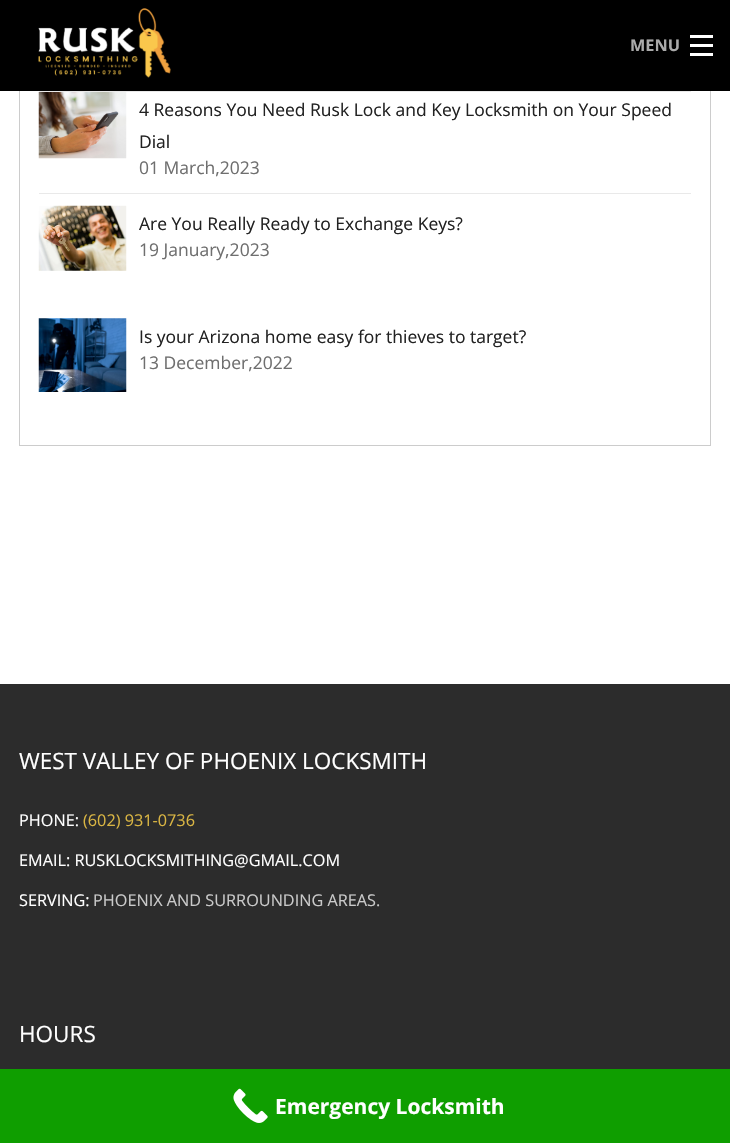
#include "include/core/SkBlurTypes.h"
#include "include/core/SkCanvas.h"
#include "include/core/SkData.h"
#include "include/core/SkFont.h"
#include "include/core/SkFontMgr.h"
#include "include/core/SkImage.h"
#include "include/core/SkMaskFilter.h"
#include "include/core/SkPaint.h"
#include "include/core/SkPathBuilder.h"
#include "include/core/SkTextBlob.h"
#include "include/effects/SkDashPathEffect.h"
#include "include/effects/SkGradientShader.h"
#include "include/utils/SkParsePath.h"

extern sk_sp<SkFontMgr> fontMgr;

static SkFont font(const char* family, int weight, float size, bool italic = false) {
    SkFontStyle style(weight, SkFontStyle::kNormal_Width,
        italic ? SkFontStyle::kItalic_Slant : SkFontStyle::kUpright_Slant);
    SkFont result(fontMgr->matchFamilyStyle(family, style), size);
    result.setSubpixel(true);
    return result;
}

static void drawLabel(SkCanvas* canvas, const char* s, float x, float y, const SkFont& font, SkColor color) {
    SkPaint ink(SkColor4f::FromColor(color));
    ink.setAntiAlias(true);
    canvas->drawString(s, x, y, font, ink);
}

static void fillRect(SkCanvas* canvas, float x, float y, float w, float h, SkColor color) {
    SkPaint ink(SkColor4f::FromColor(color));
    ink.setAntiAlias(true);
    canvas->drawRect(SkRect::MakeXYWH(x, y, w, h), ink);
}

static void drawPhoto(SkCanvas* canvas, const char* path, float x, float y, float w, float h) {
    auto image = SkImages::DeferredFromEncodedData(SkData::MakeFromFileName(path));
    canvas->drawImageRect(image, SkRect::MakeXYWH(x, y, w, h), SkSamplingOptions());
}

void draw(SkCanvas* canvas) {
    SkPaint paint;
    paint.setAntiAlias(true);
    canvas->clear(0xFFFFFFFF);
    fillRect(canvas, 0, 0, 730, 91, 0xFF000000);
    drawPhoto(canvas, "assets/img1.png", 38, 8, 133, 70);
    SkFont font1 = font("Open Sans", 700, 16.25f);
    drawLabel(canvas, "MENU", 630, 51, font1, 0xFFAAAAAA);
    fillRect(canvas, 690, 53, 23, 3, 0xFFFFFFFF);
    fillRect(canvas, 690, 44, 23, 3, 0xFFFFFFFF);
    fillRect(canvas, 690, 35, 23, 3, 0xFFFFFFFF);
    fillRect(canvas, 710, 91, 1, 355, 0xFFCCCCCC);
    fillRect(canvas, 19, 445, 692, 1, 0xFFCCCCCC);
    fillRect(canvas, 19, 91, 1, 355, 0xFFCCCCCC);
    fillRect(canvas, 39, 91, 652, 1, 0xFFE9E9E9);
    drawPhoto(canvas, "assets/img2.png", 38, 92, 89, 67);
    SkFont font2 = font("Open Sans", 400, 17.5f);
    drawLabel(canvas, "4 Reasons You Need Rusk Lock and Key Locksmith on Your Speed", 139, 116, font2, 0xFF222222);
    drawLabel(canvas, "Dial", 139, 148, font2, 0xFF222222);
    drawLabel(canvas, "01 March,2023", 139, 174, font2, 0xFF6F6F6F);
    fillRect(canvas, 39, 193, 652, 1, 0xFFE9E9E9);
    drawPhoto(canvas, "assets/img3.png", 38, 205, 89, 66);
    drawLabel(canvas, "Are You Really Ready to Exchange Keys?", 139, 230, font2, 0xFF222222);
    drawLabel(canvas, "19 January,2023", 139, 256, font2, 0xFF6F6F6F);
    drawPhoto(canvas, "assets/img4.png", 38, 318, 89, 74);
    drawLabel(canvas, "Is your Arizona home easy for thieves to target?", 139, 343, font2, 0xFF222222);
    drawLabel(canvas, "13 December,2022", 139, 369, font2, 0xFF6F6F6F);
    fillRect(canvas, 0, 684, 730, 385, 0xFF2C2C2C);
    SkFont font3 = font("Open Sans", 400, 22.5f);
    drawLabel(canvas, "WEST VALLEY OF PHOENIX LOCKSMITH", 19, 769, font3, 0xFFFFFFFF);
    SkFont font4 = font("Open Sans", 400, 16.25f);
    drawLabel(canvas, "PHONE:", 19, 826, font4, 0xFFFFFFFF);
    drawLabel(canvas, "(602) 931-0736", 83, 826, font4, 0xFFD9B543);
    drawLabel(canvas, "EMAIL: RUSKLOCKSMITHING@GMAIL.COM", 19, 866, font4, 0xFFFFFFFF);
    drawLabel(canvas, "SERVING:", 19, 906, font4, 0xFFFFFFFF);
    drawLabel(canvas, "PHOENIX AND SURROUNDING AREAS.", 93, 906, font4, 0xFFCACACA);
    drawLabel(canvas, "HOURS", 19, 1042, font3, 0xFFFFFFFF);
    fillRect(canvas, 0, 1069, 730, 74, 0xFF0F9E00);
    drawPhoto(canvas, "assets/img5.png", 233, 1088, 35, 35);
    SkFont font5 = font("Open Sans", 700, 21);
    drawLabel(canvas, "Emergency Locksmith", 275, 1114, font5, 0xFFFFFFFF);
}
